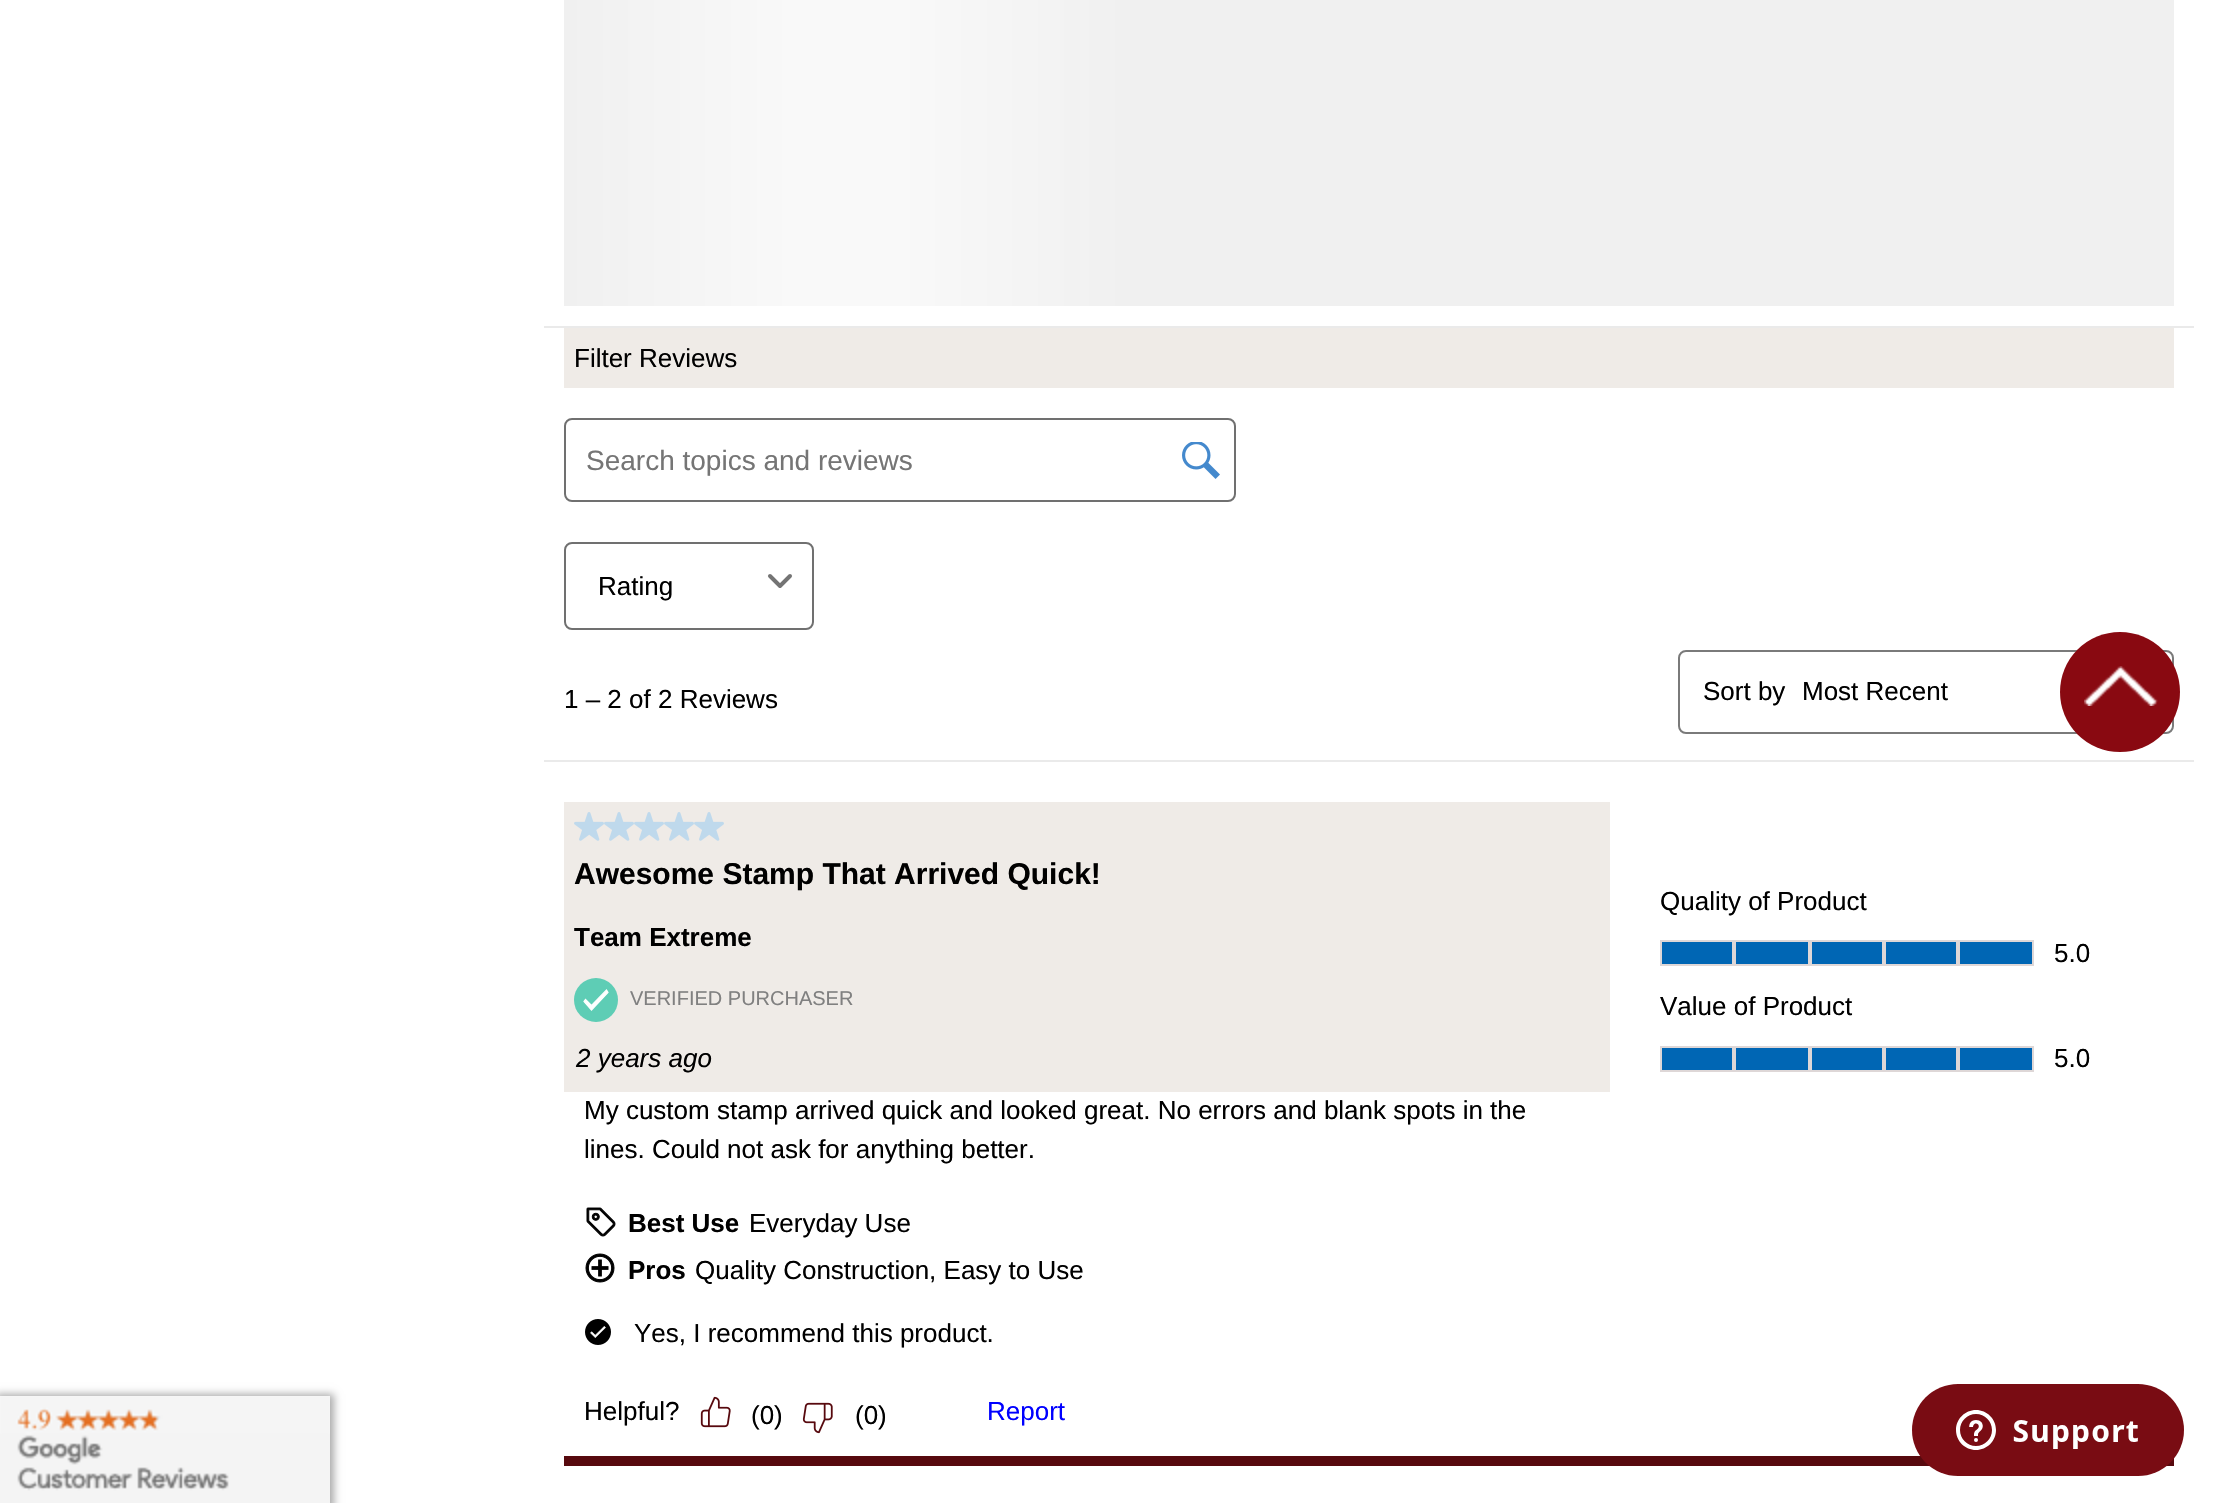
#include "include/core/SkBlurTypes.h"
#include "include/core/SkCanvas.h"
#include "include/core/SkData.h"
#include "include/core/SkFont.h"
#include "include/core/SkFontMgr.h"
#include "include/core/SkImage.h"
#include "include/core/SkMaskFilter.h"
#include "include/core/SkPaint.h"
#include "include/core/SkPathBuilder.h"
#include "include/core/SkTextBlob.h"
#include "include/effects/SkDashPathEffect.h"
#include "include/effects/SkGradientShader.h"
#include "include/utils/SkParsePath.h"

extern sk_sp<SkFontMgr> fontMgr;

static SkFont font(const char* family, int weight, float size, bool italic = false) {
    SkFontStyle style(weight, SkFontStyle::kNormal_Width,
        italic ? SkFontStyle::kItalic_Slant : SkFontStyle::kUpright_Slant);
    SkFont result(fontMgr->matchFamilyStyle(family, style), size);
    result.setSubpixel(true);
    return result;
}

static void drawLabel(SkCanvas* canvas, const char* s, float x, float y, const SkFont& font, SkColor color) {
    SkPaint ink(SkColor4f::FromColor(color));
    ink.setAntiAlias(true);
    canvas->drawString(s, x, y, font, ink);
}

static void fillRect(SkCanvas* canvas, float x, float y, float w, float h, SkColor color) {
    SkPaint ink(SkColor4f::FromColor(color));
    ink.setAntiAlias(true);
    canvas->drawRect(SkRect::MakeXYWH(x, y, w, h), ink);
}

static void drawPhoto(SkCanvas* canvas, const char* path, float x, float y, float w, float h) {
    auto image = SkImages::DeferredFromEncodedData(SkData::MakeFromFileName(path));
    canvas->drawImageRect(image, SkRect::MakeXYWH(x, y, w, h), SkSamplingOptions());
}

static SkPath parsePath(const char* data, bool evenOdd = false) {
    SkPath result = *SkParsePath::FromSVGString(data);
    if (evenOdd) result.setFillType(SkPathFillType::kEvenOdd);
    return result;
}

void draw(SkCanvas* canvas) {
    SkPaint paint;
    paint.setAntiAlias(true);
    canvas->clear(0xFFFFFFFF);
    fillRect(canvas, 544, 326, 1650, 2, 0xFFEAEAEA);
    fillRect(canvas, 564, 0, 1610, 306, 0xFFF0F0F0);
    {
        const SkColor colors[] = {0xFFF0F0F0, 0xFFF9F9F9, 0xFFF9F9F9, 0xFFF0F0F0};
        const float stops[] = {0, 0.41f, 0.59f, 1};
        const SkPoint ends[] = {{564, -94}, {1128, -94}};
        paint.setShader(SkGradientShader::MakeLinear(ends, colors, stops, 4, SkTileMode::kClamp));
        paint.setAlpha(255);
    }
    canvas->drawPath(parsePath("M574-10H1128V306H574C568.5 306 564 301.5 564 296V0C564-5.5 568.5-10 574-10Z"), paint);
    fillRect(canvas, 564, 328, 1610, 60, 0xFFEFEBE7);
    SkFont font1 = font("Liberation Sans", 400, 26);
    drawLabel(canvas, "Filter Reviews", 574, 367, font1, 0xFF000000);
    paint.setStroke(true);
    paint.setStrokeWidth(2);
    paint.setShader(nullptr);
    paint.setColor(0xFF707070);
    canvas->drawRoundRect(SkRect::MakeXYWH(565, 419, 670, 82), 7, 7, paint);
    SkFont font2 = font("Liberation Sans", 400, 28);
    drawLabel(canvas, "Search topics and reviews", 586, 470, font2, 0xFF757575);
    drawPhoto(canvas, "assets/img1.png", 1182, 442, 38, 37);
    canvas->drawRoundRect(SkRect::MakeXYWH(565, 543, 248, 86), 7, 7, paint);
    drawLabel(canvas, "Rating", 598, 595, font1, 0xFF000000);
    paint.setStrokeWidth(4);
    paint.setStrokeCap(SkPaint::kRound_Cap);
    paint.setStrokeJoin(SkPaint::kRound_Join);
    paint.setColor(0xFF747474);
    canvas->drawPath(parsePath("M770 576L780 586L790 576"), paint);
    fillRect(canvas, 544, 760, 1650, 2, 0xFFEAEAEA);
    drawLabel(canvas, "1 – 2 of 2 Reviews", 564, 708, font1, 0xFF000000);
    paint.setStrokeWidth(2);
    paint.setStrokeCap(SkPaint::kButt_Cap);
    paint.setStrokeJoin(SkPaint::kMiter_Join);
    paint.setColor(0xFF7A7A7A);
    canvas->drawRoundRect(SkRect::MakeXYWH(1679, 651, 494, 82), 7, 7, paint);
    drawLabel(canvas, "Sort by", 1703, 700, font1, 0xFF000000);
    drawLabel(canvas, "Most Recent", 1802, 700, font1, 0xFF000000);
    fillRect(canvas, 564, 1456, 1610, 10, 0xFF57090E);
    fillRect(canvas, 564, 802, 1046, 290, 0xFFEFEBE7);
    drawPhoto(canvas, "assets/img2.png", 574, 812, 30, 29);
    drawPhoto(canvas, "assets/img2.png", 604, 812, 30, 29);
    drawPhoto(canvas, "assets/img2.png", 634, 812, 30, 29);
    drawPhoto(canvas, "assets/img2.png", 664, 812, 30, 29);
    drawPhoto(canvas, "assets/img2.png", 694, 812, 30, 29);
    SkFont font3 = font("Liberation Sans", 700, 30);
    drawLabel(canvas, "Awesome Stamp That Arrived Quick!", 574, 884, font3, 0xFF000000);
    canvas->save();
    canvas->clipRect(SkRect::MakeXYWH(574, 0, 460, 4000));
    SkFont font4 = font("Liberation Sans", 700, 26);
    drawLabel(canvas, "Team Extreme", 574, 946, font4, 0xFF000000);
    canvas->restore();
    paint.setStroke(false);
    paint.setColor(0xFF5ECDB5);
    canvas->drawCircle(596, 1000, 22, paint);
    paint.setColor(0xFFFFFFFF);
    canvas->drawPath(parsePath("M591.5 1005.5L585.5 999.5L584 1001.5L591.5 1010L608 992.5L606.5 990Z", true), paint);
    paint.setStroke(true);
    paint.setStrokeWidth(1.2f);
    canvas->drawPath(parsePath("M591.5 1005.5L585.5 999.5L584 1001.5L591.5 1010L608 992.5L606.5 990Z", true), paint);
    SkFont font5 = font("Liberation Sans", 400, 20);
    drawLabel(canvas, "VERIFIED PURCHASER", 630, 1005, font5, 0xFF808080);
    SkFont font6 = font("Liberation Sans", 400, 26, true);
    drawLabel(canvas, "2 years ago", 576, 1067, font6, 0xFF000000);
    drawLabel(canvas, "My custom stamp arrived quick and looked great. No errors and blank spots in the", 584, 1119, font1, 0xFF000000);
    drawLabel(canvas, "lines. Could not ask for anything better.", 584, 1158, font1, 0xFF000000);
    drawPhoto(canvas, "assets/img3.png", 586, 1207, 30, 30);
    drawLabel(canvas, "Best Use", 628, 1232, font4, 0xFF000000);
    drawLabel(canvas, "Everyday Use", 749, 1232, font1, 0xFF000000);
    drawPhoto(canvas, "assets/img4.png", 585, 1253, 30, 30);
    drawLabel(canvas, "Pros", 628, 1279, font4, 0xFF000000);
    drawLabel(canvas, "Quality Construction, Easy to Use", 695, 1279, font1, 0xFF000000);
    drawPhoto(canvas, "assets/img5.png", 585, 1319, 26, 26);
    drawLabel(canvas, "Yes, I recommend this product.", 634, 1342, font1, 0xFF000000);
    drawLabel(canvas, "Helpful?", 584, 1420, font1, 0xFF000000);
    drawPhoto(canvas, "assets/img6.png", 700, 1396, 31, 32);
    drawLabel(canvas, "(0)", 751, 1424, font1, 0xFF000000);
    drawPhoto(canvas, "assets/img7.png", 802, 1402, 31, 32);
    drawLabel(canvas, "(0)", 855, 1424, font1, 0xFF000000);
    drawLabel(canvas, "Report", 987, 1420, font1, 0xFF0000FF);
    drawLabel(canvas, "Quality of Product", 1660, 910, font1, 0xFF000000);
    fillRect(canvas, 1662, 942, 370, 22, 0xFF0066B4);
    paint.setStrokeWidth(2);
    paint.setColor(0xFFDED7D7);
    canvas->drawRect(SkRect::MakeXYWH(1661, 941, 72, 24), paint);
    canvas->drawRect(SkRect::MakeXYWH(1735, 941, 74, 24), paint);
    canvas->drawRect(SkRect::MakeXYWH(1811, 941, 72, 24), paint);
    canvas->drawRect(SkRect::MakeXYWH(1885, 941, 72, 24), paint);
    canvas->drawRect(SkRect::MakeXYWH(1959, 941, 74, 24), paint);
    drawLabel(canvas, "5.0", 2054, 962, font1, 0xFF000000);
    drawLabel(canvas, "Value of Product", 1660, 1015, font1, 0xFF000000);
    fillRect(canvas, 1662, 1048, 370, 22, 0xFF0066B4);
    canvas->drawRect(SkRect::MakeXYWH(1661, 1047, 72, 24), paint);
    canvas->drawRect(SkRect::MakeXYWH(1735, 1047, 74, 24), paint);
    canvas->drawRect(SkRect::MakeXYWH(1811, 1047, 72, 24), paint);
    canvas->drawRect(SkRect::MakeXYWH(1885, 1047, 72, 24), paint);
    canvas->drawRect(SkRect::MakeXYWH(1959, 1047, 74, 24), paint);
    drawLabel(canvas, "5.0", 2054, 1067, font1, 0xFF000000);
    paint.setStroke(false);
    paint.setColor(0xFF890911);
    canvas->drawCircle(2120, 692, 60, paint);
    drawPhoto(canvas, "assets/img8.png", 2084, 666, 74, 40);
    paint.setColor(0xFFAAAAAA);
    paint.setMaskFilter(SkMaskFilter::MakeBlur(kNormal_SkBlurStyle, 4));
    canvas->drawRect(SkRect::MakeXYWH(-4, 1394, 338, 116), paint);
    paint.setMaskFilter(nullptr);
    drawPhoto(canvas, "assets/img9.png", 0, 1396, 330, 107);
    drawPhoto(canvas, "assets/img10.png", 1912, 1384, 272, 92);
}
